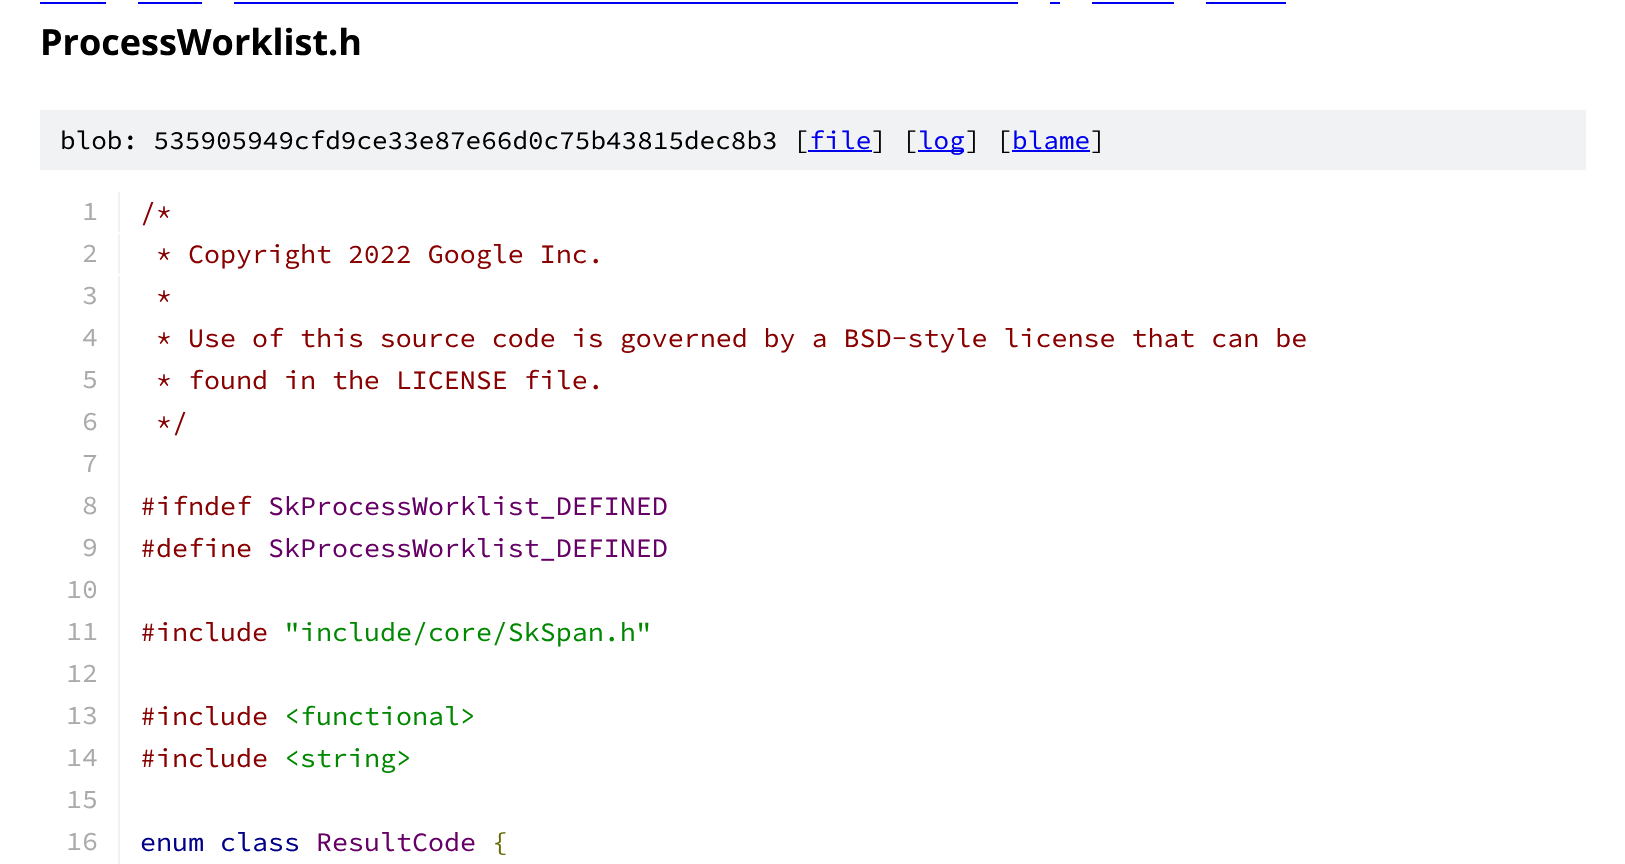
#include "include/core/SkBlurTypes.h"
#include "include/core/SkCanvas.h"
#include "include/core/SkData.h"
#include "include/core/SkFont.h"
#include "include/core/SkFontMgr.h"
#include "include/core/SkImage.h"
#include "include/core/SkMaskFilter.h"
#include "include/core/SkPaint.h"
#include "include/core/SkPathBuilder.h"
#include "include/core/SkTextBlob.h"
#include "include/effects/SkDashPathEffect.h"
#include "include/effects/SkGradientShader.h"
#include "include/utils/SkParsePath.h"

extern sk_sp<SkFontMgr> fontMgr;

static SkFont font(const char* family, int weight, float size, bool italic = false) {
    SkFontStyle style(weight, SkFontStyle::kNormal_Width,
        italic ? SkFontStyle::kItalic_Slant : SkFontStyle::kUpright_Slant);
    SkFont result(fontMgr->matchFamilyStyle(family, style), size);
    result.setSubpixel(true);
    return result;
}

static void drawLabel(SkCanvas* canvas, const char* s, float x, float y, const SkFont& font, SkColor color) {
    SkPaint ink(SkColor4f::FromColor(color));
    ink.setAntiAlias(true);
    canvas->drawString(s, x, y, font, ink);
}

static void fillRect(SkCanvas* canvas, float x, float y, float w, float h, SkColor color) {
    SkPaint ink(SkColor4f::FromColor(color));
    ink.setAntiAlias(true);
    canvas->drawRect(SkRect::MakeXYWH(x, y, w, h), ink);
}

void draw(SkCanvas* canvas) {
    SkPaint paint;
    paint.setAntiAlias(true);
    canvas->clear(0xFFFFFFFF);
    fillRect(canvas, 40, 2, 66, 2, 0xFF0000EE);
    fillRect(canvas, 138, 2, 64, 2, 0xFF0000EE);
    fillRect(canvas, 234, 2, 784, 2, 0xFF0000EE);
    fillRect(canvas, 1050, 2, 10, 2, 0xFF0000EE);
    fillRect(canvas, 1092, 2, 82, 2, 0xFF0000EE);
    fillRect(canvas, 1206, 2, 80, 2, 0xFF0000EE);
    SkFont font1 = font("Open Sans", 700, 36);
    drawLabel(canvas, "ProcessWorklist.h", 40, 55, font1, 0xFF000000);
    fillRect(canvas, 40, 110, 1546, 60, 0xFFF1F2F3);
    SkFont font2 = font("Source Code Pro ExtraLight", 200, 26);
    drawLabel(canvas, "blob: 535905949cfd9ce33e87e66d0c75b43815dec8b3 [", 60, 149, font2, 0xFF000000);
    drawLabel(canvas, "file", 809, 149, font2, 0xFF0000EE);
    fillRect(canvas, 808, 150, 64, 2, 0xFF0000EE);
    drawLabel(canvas, "] [", 871, 149, font2, 0xFF000000);
    fillRect(canvas, 918, 150, 46, 2, 0xFF0000EE);
    drawLabel(canvas, "log", 918, 149, font2, 0xFF0000EE);
    drawLabel(canvas, "] [", 965, 149, font2, 0xFF000000);
    drawLabel(canvas, "blame", 1012, 149, font2, 0xFF0000EE);
    fillRect(canvas, 1012, 150, 78, 2, 0xFF0000EE);
    drawLabel(canvas, "]", 1090, 149, font2, 0xFF000000);
    fillRect(canvas, 118, 192, 2, 40, 0xFFF1F2F3);
    SkFont font3 = font("Source Code Pro ExtraLight", 200, 26.65f);
    drawLabel(canvas, "1", 82, 220, font3, 0xFFAAAAAA);
    drawLabel(canvas, "/*", 140, 221, font3, 0xFF880000);
    fillRect(canvas, 118, 234, 2, 40, 0xFFF1F2F3);
    drawLabel(canvas, "2", 82, 262, font3, 0xFFAAAAAA);
    drawLabel(canvas, "* Copyright 2022 Google Inc.", 156, 263, font3, 0xFF880000);
    fillRect(canvas, 118, 276, 2, 588, 0xFFF1F2F3);
    drawLabel(canvas, "3", 82, 304, font3, 0xFFAAAAAA);
    drawLabel(canvas, "*", 156, 305, font3, 0xFF880000);
    drawLabel(canvas, "4", 82, 346, font3, 0xFFAAAAAA);
    drawLabel(canvas, "* Use of this source code is governed by a BSD-style license that can be", 156, 347, font3, 0xFF880000);
    drawLabel(canvas, "5", 82, 388, font3, 0xFFAAAAAA);
    drawLabel(canvas, "* found in the LICENSE file.", 156, 389, font3, 0xFF880000);
    drawLabel(canvas, "6", 82, 430, font3, 0xFFAAAAAA);
    drawLabel(canvas, "*/", 156, 431, font3, 0xFF880000);
    drawLabel(canvas, "7", 82, 472, font3, 0xFFAAAAAA);
    drawLabel(canvas, "8", 82, 514, font3, 0xFFAAAAAA);
    drawLabel(canvas, "#ifndef", 140, 515, font3, 0xFF880000);
    drawLabel(canvas, "SkProcessWorklist_DEFINED", 268, 515, font3, 0xFF660066);
    drawLabel(canvas, "9", 82, 556, font3, 0xFFAAAAAA);
    drawLabel(canvas, "#define", 140, 557, font3, 0xFF880000);
    drawLabel(canvas, "SkProcessWorklist_DEFINED", 268, 557, font3, 0xFF660066);
    drawLabel(canvas, "10", 66, 598, font3, 0xFFAAAAAA);
    drawLabel(canvas, "11", 66, 640, font3, 0xFFAAAAAA);
    drawLabel(canvas, "#include", 140, 641, font3, 0xFF880000);
    drawLabel(canvas, "\"include/core/SkSpan.h\"", 284, 641, font3, 0xFF008800);
    drawLabel(canvas, "12", 66, 682, font3, 0xFFAAAAAA);
    drawLabel(canvas, "13", 66, 724, font3, 0xFFAAAAAA);
    drawLabel(canvas, "#include", 140, 725, font3, 0xFF880000);
    drawLabel(canvas, "<functional>", 284, 725, font3, 0xFF008800);
    drawLabel(canvas, "14", 66, 766, font3, 0xFFAAAAAA);
    drawLabel(canvas, "#include", 140, 767, font3, 0xFF880000);
    drawLabel(canvas, "<string>", 284, 767, font3, 0xFF008800);
    drawLabel(canvas, "15", 66, 808, font3, 0xFFAAAAAA);
    drawLabel(canvas, "16", 66, 850, font3, 0xFFAAAAAA);
    drawLabel(canvas, "enum class", 140, 851, font3, 0xFF000088);
    drawLabel(canvas, "ResultCode", 316, 851, font3, 0xFF660066);
    drawLabel(canvas, "{", 492, 851, font3, 0xFF666600);
}
